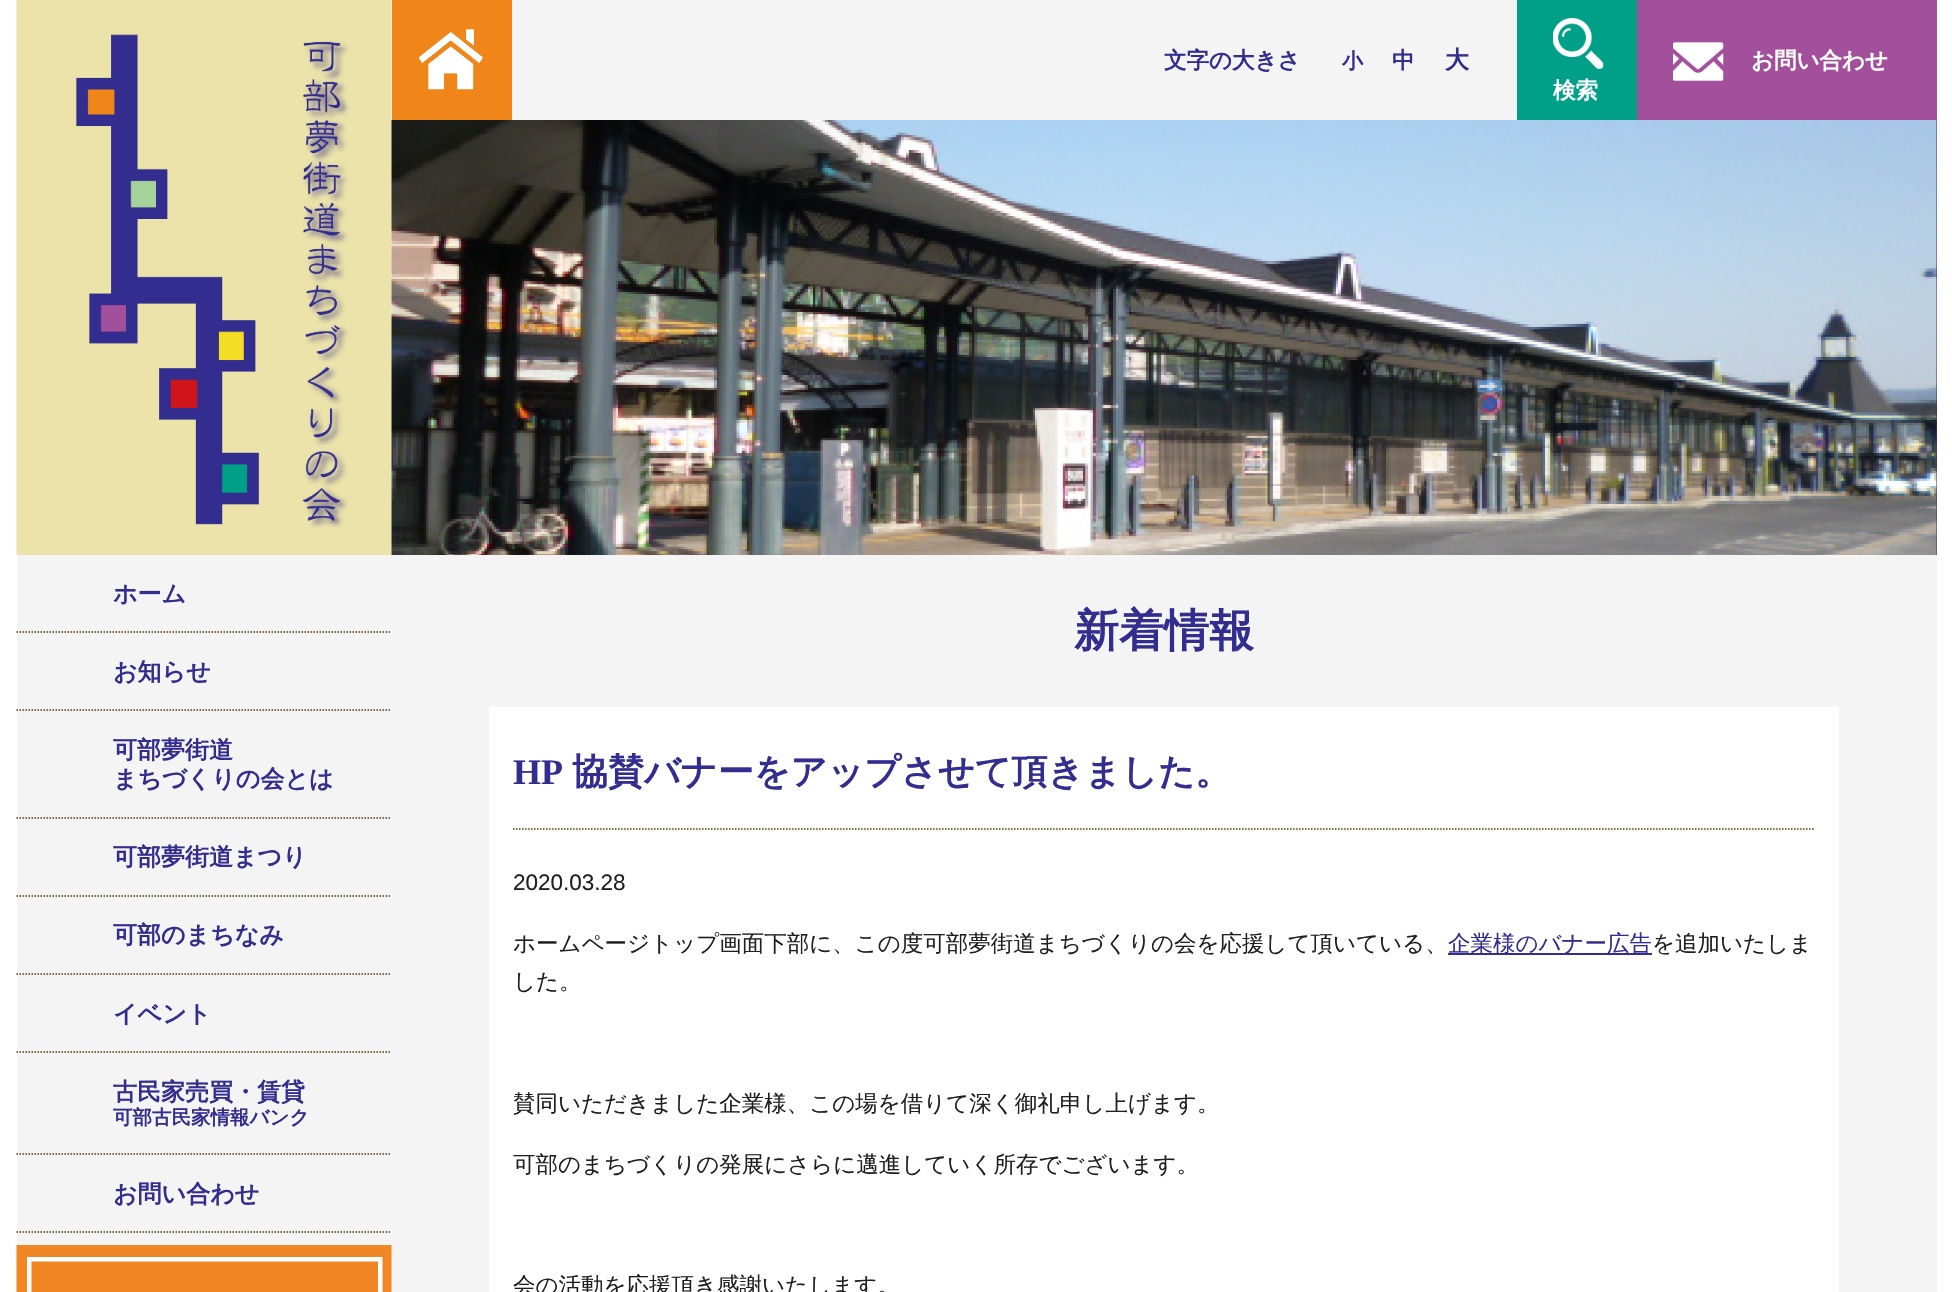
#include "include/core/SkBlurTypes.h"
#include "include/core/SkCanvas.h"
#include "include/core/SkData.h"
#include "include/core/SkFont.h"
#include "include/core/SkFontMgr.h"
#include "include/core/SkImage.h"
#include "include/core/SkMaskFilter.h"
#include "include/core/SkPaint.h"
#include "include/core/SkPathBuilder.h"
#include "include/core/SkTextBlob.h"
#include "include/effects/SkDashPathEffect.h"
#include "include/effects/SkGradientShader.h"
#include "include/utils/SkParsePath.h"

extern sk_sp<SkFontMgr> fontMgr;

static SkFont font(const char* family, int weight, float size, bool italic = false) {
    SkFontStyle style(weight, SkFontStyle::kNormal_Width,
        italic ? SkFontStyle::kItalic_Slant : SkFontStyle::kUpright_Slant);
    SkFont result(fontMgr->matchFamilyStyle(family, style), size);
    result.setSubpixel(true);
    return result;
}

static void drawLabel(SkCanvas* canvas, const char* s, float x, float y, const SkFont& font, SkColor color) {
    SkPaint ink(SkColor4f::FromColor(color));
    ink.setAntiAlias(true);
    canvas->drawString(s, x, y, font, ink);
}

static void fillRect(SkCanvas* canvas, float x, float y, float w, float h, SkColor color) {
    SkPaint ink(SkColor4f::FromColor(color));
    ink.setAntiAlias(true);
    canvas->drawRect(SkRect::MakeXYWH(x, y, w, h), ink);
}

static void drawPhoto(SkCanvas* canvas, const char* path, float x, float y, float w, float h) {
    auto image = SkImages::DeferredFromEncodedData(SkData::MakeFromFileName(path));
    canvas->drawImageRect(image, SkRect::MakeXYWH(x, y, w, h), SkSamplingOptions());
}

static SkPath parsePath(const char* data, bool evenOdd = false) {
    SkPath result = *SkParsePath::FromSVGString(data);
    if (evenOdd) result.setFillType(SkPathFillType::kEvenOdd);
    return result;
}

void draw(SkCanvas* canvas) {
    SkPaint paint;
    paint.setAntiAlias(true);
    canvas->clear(0xFFFFFFFF);
    fillRect(canvas, 17, 0, 1920, 1292, 0xFFF4F4F4);
    drawPhoto(canvas, "assets/img1.png", 16, 0, 376, 555);
    fillRect(canvas, 392, 0, 120, 120, 0xFFF08619);
    drawPhoto(canvas, "assets/img2.png", 419, 29, 64, 61);
    SkFont font1 = font("WenQuanYi Zen Hei", 700, 22.5f);
    drawLabel(canvas, "文字の大きさ", 1164, 68, font1, 0xFF332D8F);
    SkFont font2 = font("WenQuanYi Zen Hei", 700, 21);
    drawLabel(canvas, "小", 1342, 68, font2, 0xFF332D8F);
    drawLabel(canvas, "中", 1392, 68, font1, 0xFF332D8F);
    SkFont font3 = font("WenQuanYi Zen Hei", 700, 24);
    drawLabel(canvas, "大", 1445, 68, font3, 0xFF332D8F);
    fillRect(canvas, 1637, 0, 300, 120, 0xFFA2509C);
    drawPhoto(canvas, "assets/img3.png", 1673, 41, 51, 41);
    drawLabel(canvas, "お問い合わせ", 1751, 68, font1, 0xFFFFFFFF);
    fillRect(canvas, 1517, 0, 120, 120, 0xFF009F88);
    drawPhoto(canvas, "assets/img4.png", 1553, 18, 51, 51);
    drawLabel(canvas, "検索", 1553, 98, font1, 0xFFFFFFFF);
    fillRect(canvas, 1936, 120, 1, 435, 0xFF332D8F);
    drawPhoto(canvas, "assets/img5.png", 391, 120, 1546, 435);
    paint.setStroke(true);
    paint.setStrokeWidth(1.5f);
    paint.setColor(0xFF593500);
    paint.setPathEffect(SkDashPathEffect::Make({{1.5f, 1.5f}}, 0));
    canvas->drawPath(parsePath("M16.5 632H391.5"), paint);
    paint.setPathEffect(nullptr);
    drawLabel(canvas, "ホーム", 113, 602, font3, 0xFF332D8F);
    paint.setPathEffect(SkDashPathEffect::Make({{1.5f, 1.5f}}, 0));
    canvas->drawPath(parsePath("M16.5 710H391.5"), paint);
    paint.setPathEffect(nullptr);
    drawLabel(canvas, "お知らせ", 113, 680, font3, 0xFF332D8F);
    paint.setPathEffect(SkDashPathEffect::Make({{1.5f, 1.5f}}, 0));
    canvas->drawPath(parsePath("M16.5 818H391.5"), paint);
    paint.setPathEffect(nullptr);
    drawLabel(canvas, "可部夢街道", 113, 758, font3, 0xFF332D8F);
    drawLabel(canvas, "まちづくりの会とは", 113, 787, font3, 0xFF332D8F);
    paint.setPathEffect(SkDashPathEffect::Make({{1.5f, 1.5f}}, 0));
    canvas->drawPath(parsePath("M16.5 896H391.5"), paint);
    paint.setPathEffect(nullptr);
    drawLabel(canvas, "可部夢街道まつり", 113, 865, font3, 0xFF332D8F);
    paint.setPathEffect(SkDashPathEffect::Make({{1.5f, 1.5f}}, 0));
    canvas->drawPath(parsePath("M16.5 974H391.5"), paint);
    paint.setPathEffect(nullptr);
    drawLabel(canvas, "可部のまちなみ", 113, 943, font3, 0xFF332D8F);
    paint.setPathEffect(SkDashPathEffect::Make({{1.5f, 1.5f}}, 0));
    canvas->drawPath(parsePath("M16.5 1052H391.5"), paint);
    paint.setPathEffect(nullptr);
    drawLabel(canvas, "イベント", 113, 1022, font3, 0xFF332D8F);
    paint.setPathEffect(SkDashPathEffect::Make({{1.5f, 1.5f}}, 0));
    canvas->drawPath(parsePath("M16.5 1154H391.5"), paint);
    paint.setPathEffect(nullptr);
    drawLabel(canvas, "古民家売買・賃貸", 113, 1100, font3, 0xFF332D8F);
    SkFont font4 = font("WenQuanYi Zen Hei", 700, 19.5f);
    drawLabel(canvas, "可部古民家情報バンク", 113, 1124, font4, 0xFF332D8F);
    paint.setPathEffect(SkDashPathEffect::Make({{1.5f, 1.5f}}, 0));
    canvas->drawPath(parsePath("M16.5 1232H391.5"), paint);
    paint.setPathEffect(nullptr);
    drawLabel(canvas, "お問い合わせ", 113, 1202, font3, 0xFF332D8F);
    drawPhoto(canvas, "assets/img6.png", 16, 1245, 376, 47);
    SkFont font5 = font("WenQuanYi Zen Hei", 700, 45);
    drawLabel(canvas, "新着情報", 1074, 646, font5, 0xFF332D8F);
    fillRect(canvas, 489, 707, 1350, 585, 0xFFFFFFFF);
    paint.setPathEffect(SkDashPathEffect::Make({{1.5f, 1.5f}}, 0));
    canvas->drawPath(parsePath("M513 829H1815"), paint);
    paint.setPathEffect(nullptr);
    SkFont font6 = font("Liberation Serif", 700, 36);
    drawLabel(canvas, "HP", 513, 784, font6, 0xFF332D8F);
    SkFont font7 = font("WenQuanYi Zen Hei", 700, 36);
    drawLabel(canvas, "協賛バナーをアップさせて頂きました。", 572, 784, font7, 0xFF332D8F);
    SkFont font8 = font("Liberation Sans", 400, 22.5f);
    drawLabel(canvas, "2020.03.28", 513, 890, font8, 0xFF1F1F1F);
    SkFont font9 = font("WenQuanYi Zen Hei", 500, 22.5f);
    drawLabel(canvas, "ホームページトップ画面下部に、この度可部夢街道まちづくりの会を応援して頂いている、", 513, 951, font9, 0xFF1F1F1F);
    fillRect(canvas, 1448, 953, 204, 2, 0xFF332D8F);
    drawLabel(canvas, "企業様のバナー広告", 1448, 951, font9, 0xFF332D8F);
    drawLabel(canvas, "を追加いたしま", 1652, 951, font9, 0xFF1F1F1F);
    drawLabel(canvas, "した。", 513, 989, font9, 0xFF1F1F1F);
    drawLabel(canvas, "賛同いただきました企業様、この場を借りて深く御礼申し上げます。", 513, 1111, font9, 0xFF1F1F1F);
    drawLabel(canvas, "可部のまちづくりの発展にさらに邁進していく所存でございます。", 513, 1172, font9, 0xFF1F1F1F);
    drawLabel(canvas, "会の活動を応援頂き感謝いたします。", 513, 1293, font9, 0xFF1F1F1F);
}
